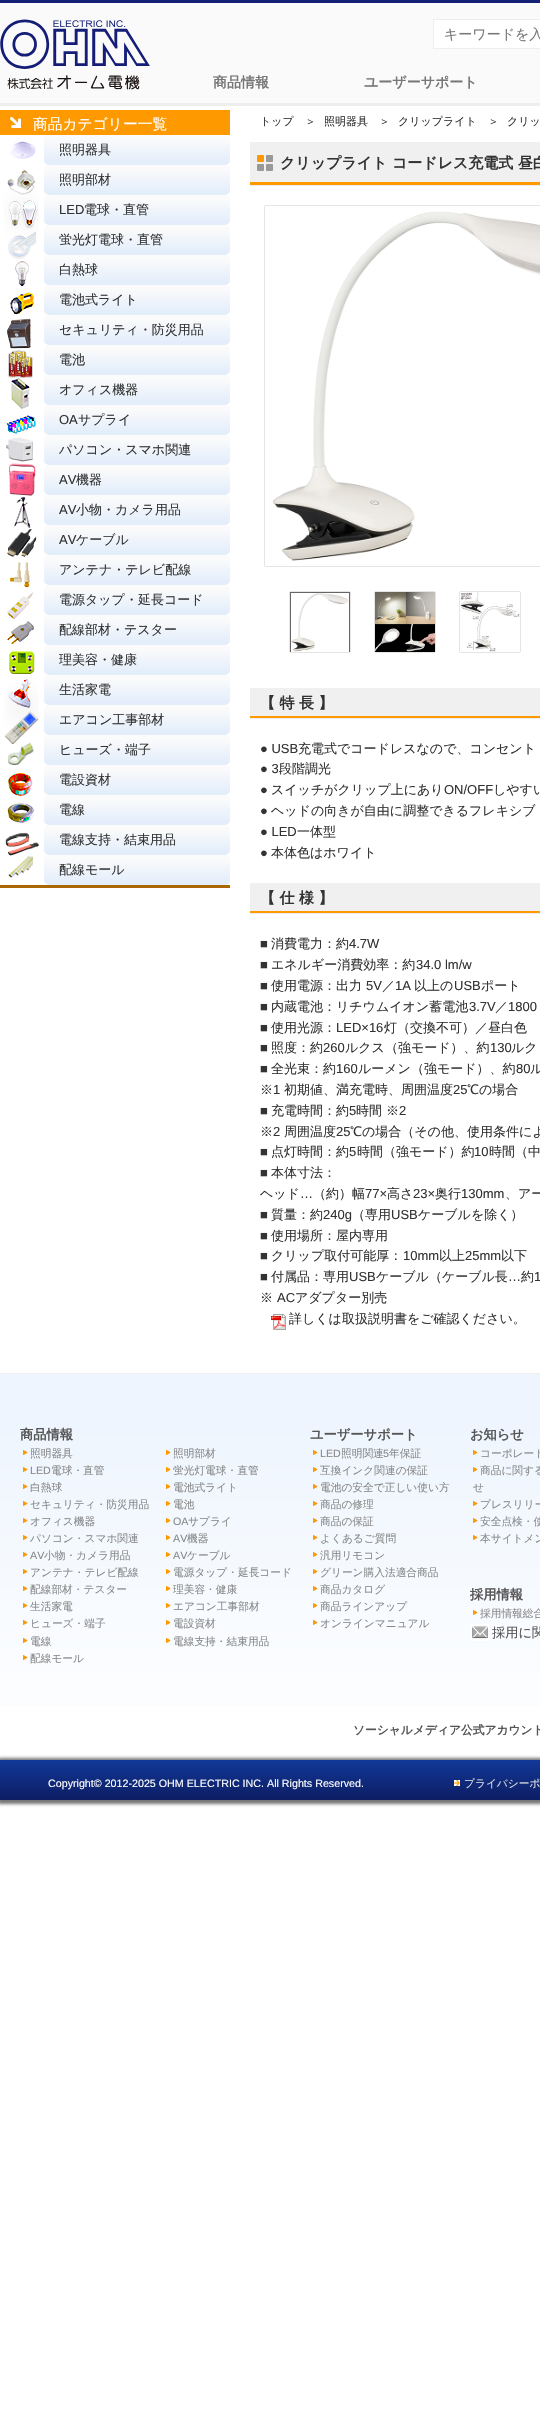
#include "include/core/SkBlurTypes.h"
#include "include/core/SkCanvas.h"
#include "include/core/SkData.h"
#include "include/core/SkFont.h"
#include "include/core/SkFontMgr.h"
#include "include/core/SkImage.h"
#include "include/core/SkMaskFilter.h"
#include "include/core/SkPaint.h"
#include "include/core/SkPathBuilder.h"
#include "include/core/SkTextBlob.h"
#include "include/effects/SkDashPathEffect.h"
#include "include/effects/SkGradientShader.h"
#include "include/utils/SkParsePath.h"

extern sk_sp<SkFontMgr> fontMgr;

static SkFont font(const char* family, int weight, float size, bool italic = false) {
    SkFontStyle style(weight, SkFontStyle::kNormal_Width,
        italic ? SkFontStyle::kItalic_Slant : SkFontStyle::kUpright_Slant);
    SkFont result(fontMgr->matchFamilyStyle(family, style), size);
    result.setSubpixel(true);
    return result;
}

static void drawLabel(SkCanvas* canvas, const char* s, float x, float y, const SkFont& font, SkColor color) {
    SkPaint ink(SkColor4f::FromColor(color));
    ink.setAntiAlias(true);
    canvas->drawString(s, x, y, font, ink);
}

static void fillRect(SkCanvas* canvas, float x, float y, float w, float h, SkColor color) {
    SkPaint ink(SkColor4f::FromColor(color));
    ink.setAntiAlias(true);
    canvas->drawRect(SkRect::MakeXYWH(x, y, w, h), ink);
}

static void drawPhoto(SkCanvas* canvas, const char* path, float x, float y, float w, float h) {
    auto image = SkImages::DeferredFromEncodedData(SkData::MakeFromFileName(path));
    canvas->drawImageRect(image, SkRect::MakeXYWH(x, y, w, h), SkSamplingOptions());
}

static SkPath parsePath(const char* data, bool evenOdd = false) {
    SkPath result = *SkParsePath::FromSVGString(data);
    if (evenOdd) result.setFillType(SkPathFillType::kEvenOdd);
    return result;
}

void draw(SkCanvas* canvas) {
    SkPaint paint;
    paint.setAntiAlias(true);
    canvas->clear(0xFFFFFFFF);
    fillRect(canvas, 0, 3, 540, 100, 0xFFFAFAFA);
    fillRect(canvas, 0, 0, 540, 3, 0xFF141F76);
    fillRect(canvas, 0, 103, 540, 3, 0xFFEEEEEE);
    paint.setColor(0xFFFFFFFF);
    canvas->drawRect(SkRect::MakeXYWH(433.5f, 19.5f, 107, 29), paint);
    paint.setStroke(true);
    paint.setStrokeWidth(1);
    paint.setColor(0xFFEEEEEE);
    canvas->drawRect(SkRect::MakeXYWH(433.5f, 19.5f, 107, 29), paint);
    SkFont font1 = font("WenQuanYi Zen Hei", 500, 14);
    drawLabel(canvas, "キーワードを入", 444, 39, font1, 0xFF777777);
    drawPhoto(canvas, "assets/img1.png", 0, 19, 150, 71);
    SkFont font2 = font("WenQuanYi Zen Hei", 700, 14);
    drawLabel(canvas, "商品情報", 213, 87, font2, 0xFF777777);
    drawLabel(canvas, "ユーザーサポート", 364, 87, font2, 0xFF777777);
    drawPhoto(canvas, "assets/img2.png", 0, 110, 230, 25);
    SkFont font3 = font("WenQuanYi Zen Hei", 500, 14.75f);
    drawLabel(canvas, "商品カテゴリー一覧", 33, 129, font3, 0xFFFFFFFF);
    drawPhoto(canvas, "assets/img3.png", 4, 141, 35, 737);
    fillRect(canvas, 0, 885, 230, 3, 0xFFAA6600);
    paint.setStroke(false);
    {
        const SkColor colors[] = {0xFFFBFBFB, 0xFFE4EEFB};
        const float stops[] = {0.1f, 0.9f};
        const SkPoint ends[] = {{137, 135}, {137, 165}};
        paint.setShader(SkGradientShader::MakeLinear(ends, colors, stops, 2, SkTileMode::kClamp));
        paint.setAlpha(255);
    }
    canvas->drawRoundRect(SkRect::MakeXYWH(44, 135, 186, 30), 5, 5, paint);
    SkFont font4 = font("WenQuanYi Zen Hei", 500, 13);
    drawLabel(canvas, "照明器具", 59, 154, font4, 0xFF333333);
    {
        const SkColor colors[] = {0xFFFBFBFB, 0xFFE4EEFB};
        const float stops[] = {0.1f, 0.9f};
        const SkPoint ends[] = {{137, 165}, {137, 195}};
        paint.setShader(SkGradientShader::MakeLinear(ends, colors, stops, 2, SkTileMode::kClamp));
        paint.setAlpha(255);
    }
    canvas->drawRoundRect(SkRect::MakeXYWH(44, 165, 186, 30), 5, 5, paint);
    drawLabel(canvas, "照明部材", 59, 184, font4, 0xFF333333);
    {
        const SkColor colors[] = {0xFFFBFBFB, 0xFFE4EEFB};
        const float stops[] = {0.1f, 0.9f};
        const SkPoint ends[] = {{137, 195}, {137, 225}};
        paint.setShader(SkGradientShader::MakeLinear(ends, colors, stops, 2, SkTileMode::kClamp));
        paint.setAlpha(255);
    }
    canvas->drawRoundRect(SkRect::MakeXYWH(44, 195, 186, 30), 5, 5, paint);
    SkFont font5 = font("Liberation Sans", 400, 13);
    drawLabel(canvas, "LED", 59, 214, font5, 0xFF333333);
    drawLabel(canvas, "電球・直管", 84, 214, font4, 0xFF333333);
    {
        const SkColor colors[] = {0xFFFBFBFB, 0xFFE4EEFB};
        const float stops[] = {0.1f, 0.9f};
        const SkPoint ends[] = {{137, 225}, {137, 255}};
        paint.setShader(SkGradientShader::MakeLinear(ends, colors, stops, 2, SkTileMode::kClamp));
        paint.setAlpha(255);
    }
    canvas->drawRoundRect(SkRect::MakeXYWH(44, 225, 186, 30), 5, 5, paint);
    drawLabel(canvas, "蛍光灯電球・直管", 59, 244, font4, 0xFF333333);
    {
        const SkColor colors[] = {0xFFFBFBFB, 0xFFE4EEFB};
        const float stops[] = {0.1f, 0.9f};
        const SkPoint ends[] = {{137, 255}, {137, 285}};
        paint.setShader(SkGradientShader::MakeLinear(ends, colors, stops, 2, SkTileMode::kClamp));
        paint.setAlpha(255);
    }
    canvas->drawRoundRect(SkRect::MakeXYWH(44, 255, 186, 30), 5, 5, paint);
    drawLabel(canvas, "白熱球", 59, 274, font4, 0xFF333333);
    {
        const SkColor colors[] = {0xFFFBFBFB, 0xFFE4EEFB};
        const float stops[] = {0.1f, 0.9f};
        const SkPoint ends[] = {{137, 285}, {137, 315}};
        paint.setShader(SkGradientShader::MakeLinear(ends, colors, stops, 2, SkTileMode::kClamp));
        paint.setAlpha(255);
    }
    canvas->drawRoundRect(SkRect::MakeXYWH(44, 285, 186, 30), 5, 5, paint);
    drawLabel(canvas, "電池式ライト", 59, 304, font4, 0xFF333333);
    {
        const SkColor colors[] = {0xFFFBFBFB, 0xFFE4EEFB};
        const float stops[] = {0.1f, 0.9f};
        const SkPoint ends[] = {{137, 315}, {137, 345}};
        paint.setShader(SkGradientShader::MakeLinear(ends, colors, stops, 2, SkTileMode::kClamp));
        paint.setAlpha(255);
    }
    canvas->drawRoundRect(SkRect::MakeXYWH(44, 315, 186, 30), 5, 5, paint);
    drawLabel(canvas, "セキュリティ・防災用品", 59, 334, font4, 0xFF333333);
    {
        const SkColor colors[] = {0xFFFBFBFB, 0xFFE4EEFB};
        const float stops[] = {0.1f, 0.9f};
        const SkPoint ends[] = {{137, 345}, {137, 375}};
        paint.setShader(SkGradientShader::MakeLinear(ends, colors, stops, 2, SkTileMode::kClamp));
        paint.setAlpha(255);
    }
    canvas->drawRoundRect(SkRect::MakeXYWH(44, 345, 186, 30), 5, 5, paint);
    drawLabel(canvas, "電池", 59, 364, font4, 0xFF333333);
    {
        const SkColor colors[] = {0xFFFBFBFB, 0xFFE4EEFB};
        const float stops[] = {0.1f, 0.9f};
        const SkPoint ends[] = {{137, 375}, {137, 405}};
        paint.setShader(SkGradientShader::MakeLinear(ends, colors, stops, 2, SkTileMode::kClamp));
        paint.setAlpha(255);
    }
    canvas->drawRoundRect(SkRect::MakeXYWH(44, 375, 186, 30), 5, 5, paint);
    drawLabel(canvas, "オフィス機器", 59, 394, font4, 0xFF333333);
    {
        const SkColor colors[] = {0xFFFBFBFB, 0xFFE4EEFB};
        const float stops[] = {0.1f, 0.9f};
        const SkPoint ends[] = {{137, 405}, {137, 435}};
        paint.setShader(SkGradientShader::MakeLinear(ends, colors, stops, 2, SkTileMode::kClamp));
        paint.setAlpha(255);
    }
    canvas->drawRoundRect(SkRect::MakeXYWH(44, 405, 186, 30), 5, 5, paint);
    drawLabel(canvas, "OA", 59, 424, font5, 0xFF333333);
    drawLabel(canvas, "サプライ", 78, 424, font4, 0xFF333333);
    {
        const SkColor colors[] = {0xFFFBFBFB, 0xFFE4EEFB};
        const float stops[] = {0.1f, 0.9f};
        const SkPoint ends[] = {{137, 435}, {137, 465}};
        paint.setShader(SkGradientShader::MakeLinear(ends, colors, stops, 2, SkTileMode::kClamp));
        paint.setAlpha(255);
    }
    canvas->drawRoundRect(SkRect::MakeXYWH(44, 435, 186, 30), 5, 5, paint);
    drawLabel(canvas, "パソコン・スマホ関連", 59, 454, font4, 0xFF333333);
    {
        const SkColor colors[] = {0xFFFBFBFB, 0xFFE4EEFB};
        const float stops[] = {0.1f, 0.9f};
        const SkPoint ends[] = {{137, 465}, {137, 495}};
        paint.setShader(SkGradientShader::MakeLinear(ends, colors, stops, 2, SkTileMode::kClamp));
        paint.setAlpha(255);
    }
    canvas->drawRoundRect(SkRect::MakeXYWH(44, 465, 186, 30), 5, 5, paint);
    drawLabel(canvas, "AV", 59, 484, font5, 0xFF333333);
    drawLabel(canvas, "機器", 76, 484, font4, 0xFF333333);
    {
        const SkColor colors[] = {0xFFFBFBFB, 0xFFE4EEFB};
        const float stops[] = {0.1f, 0.9f};
        const SkPoint ends[] = {{137, 495}, {137, 525}};
        paint.setShader(SkGradientShader::MakeLinear(ends, colors, stops, 2, SkTileMode::kClamp));
        paint.setAlpha(255);
    }
    canvas->drawRoundRect(SkRect::MakeXYWH(44, 495, 186, 30), 5, 5, paint);
    drawLabel(canvas, "AV", 59, 514, font5, 0xFF333333);
    drawLabel(canvas, "小物・カメラ用品", 76, 514, font4, 0xFF333333);
    {
        const SkColor colors[] = {0xFFFBFBFB, 0xFFE4EEFB};
        const float stops[] = {0.1f, 0.9f};
        const SkPoint ends[] = {{137, 525}, {137, 555}};
        paint.setShader(SkGradientShader::MakeLinear(ends, colors, stops, 2, SkTileMode::kClamp));
        paint.setAlpha(255);
    }
    canvas->drawRoundRect(SkRect::MakeXYWH(44, 525, 186, 30), 5, 5, paint);
    drawLabel(canvas, "AV", 59, 544, font5, 0xFF333333);
    drawLabel(canvas, "ケーブル", 76, 544, font4, 0xFF333333);
    {
        const SkColor colors[] = {0xFFFBFBFB, 0xFFE4EEFB};
        const float stops[] = {0.1f, 0.9f};
        const SkPoint ends[] = {{137, 555}, {137, 585}};
        paint.setShader(SkGradientShader::MakeLinear(ends, colors, stops, 2, SkTileMode::kClamp));
        paint.setAlpha(255);
    }
    canvas->drawRoundRect(SkRect::MakeXYWH(44, 555, 186, 30), 5, 5, paint);
    drawLabel(canvas, "アンテナ・テレビ配線", 59, 574, font4, 0xFF333333);
    {
        const SkColor colors[] = {0xFFFBFBFB, 0xFFE4EEFB};
        const float stops[] = {0.1f, 0.9f};
        const SkPoint ends[] = {{137, 585}, {137, 615}};
        paint.setShader(SkGradientShader::MakeLinear(ends, colors, stops, 2, SkTileMode::kClamp));
        paint.setAlpha(255);
    }
    canvas->drawRoundRect(SkRect::MakeXYWH(44, 585, 186, 30), 5, 5, paint);
    drawLabel(canvas, "電源タップ・延長コード", 59, 604, font4, 0xFF333333);
    {
        const SkColor colors[] = {0xFFFBFBFB, 0xFFE4EEFB};
        const float stops[] = {0.1f, 0.9f};
        const SkPoint ends[] = {{137, 615}, {137, 645}};
        paint.setShader(SkGradientShader::MakeLinear(ends, colors, stops, 2, SkTileMode::kClamp));
        paint.setAlpha(255);
    }
    canvas->drawRoundRect(SkRect::MakeXYWH(44, 615, 186, 30), 5, 5, paint);
    drawLabel(canvas, "配線部材・テスター", 59, 634, font4, 0xFF333333);
    {
        const SkColor colors[] = {0xFFFBFBFB, 0xFFE4EEFB};
        const float stops[] = {0.1f, 0.9f};
        const SkPoint ends[] = {{137, 645}, {137, 675}};
        paint.setShader(SkGradientShader::MakeLinear(ends, colors, stops, 2, SkTileMode::kClamp));
        paint.setAlpha(255);
    }
    canvas->drawRoundRect(SkRect::MakeXYWH(44, 645, 186, 30), 5, 5, paint);
    drawLabel(canvas, "理美容・健康", 59, 664, font4, 0xFF333333);
    {
        const SkColor colors[] = {0xFFFBFBFB, 0xFFE4EEFB};
        const float stops[] = {0.1f, 0.9f};
        const SkPoint ends[] = {{137, 675}, {137, 705}};
        paint.setShader(SkGradientShader::MakeLinear(ends, colors, stops, 2, SkTileMode::kClamp));
        paint.setAlpha(255);
    }
    canvas->drawRoundRect(SkRect::MakeXYWH(44, 675, 186, 30), 5, 5, paint);
    drawLabel(canvas, "生活家電", 59, 694, font4, 0xFF333333);
    {
        const SkColor colors[] = {0xFFFBFBFB, 0xFFE4EEFB};
        const float stops[] = {0.1f, 0.9f};
        const SkPoint ends[] = {{137, 705}, {137, 735}};
        paint.setShader(SkGradientShader::MakeLinear(ends, colors, stops, 2, SkTileMode::kClamp));
        paint.setAlpha(255);
    }
    canvas->drawRoundRect(SkRect::MakeXYWH(44, 705, 186, 30), 5, 5, paint);
    drawLabel(canvas, "エアコン工事部材", 59, 724, font4, 0xFF333333);
    {
        const SkColor colors[] = {0xFFFBFBFB, 0xFFE4EEFB};
        const float stops[] = {0.1f, 0.9f};
        const SkPoint ends[] = {{137, 735}, {137, 765}};
        paint.setShader(SkGradientShader::MakeLinear(ends, colors, stops, 2, SkTileMode::kClamp));
        paint.setAlpha(255);
    }
    canvas->drawRoundRect(SkRect::MakeXYWH(44, 735, 186, 30), 5, 5, paint);
    drawLabel(canvas, "ヒューズ・端子", 59, 754, font4, 0xFF333333);
    {
        const SkColor colors[] = {0xFFFBFBFB, 0xFFE4EEFB};
        const float stops[] = {0.1f, 0.9f};
        const SkPoint ends[] = {{137, 765}, {137, 795}};
        paint.setShader(SkGradientShader::MakeLinear(ends, colors, stops, 2, SkTileMode::kClamp));
        paint.setAlpha(255);
    }
    canvas->drawRoundRect(SkRect::MakeXYWH(44, 765, 186, 30), 5, 5, paint);
    drawLabel(canvas, "電設資材", 59, 784, font4, 0xFF333333);
    {
        const SkColor colors[] = {0xFFFBFBFB, 0xFFE4EEFB};
        const float stops[] = {0.1f, 0.9f};
        const SkPoint ends[] = {{137, 795}, {137, 825}};
        paint.setShader(SkGradientShader::MakeLinear(ends, colors, stops, 2, SkTileMode::kClamp));
        paint.setAlpha(255);
    }
    canvas->drawRoundRect(SkRect::MakeXYWH(44, 795, 186, 30), 5, 5, paint);
    drawLabel(canvas, "電線", 59, 814, font4, 0xFF333333);
    {
        const SkColor colors[] = {0xFFFBFBFB, 0xFFE4EEFB};
        const float stops[] = {0.1f, 0.9f};
        const SkPoint ends[] = {{137, 825}, {137, 855}};
        paint.setShader(SkGradientShader::MakeLinear(ends, colors, stops, 2, SkTileMode::kClamp));
        paint.setAlpha(255);
    }
    canvas->drawRoundRect(SkRect::MakeXYWH(44, 825, 186, 30), 5, 5, paint);
    drawLabel(canvas, "電線支持・結束用品", 59, 844, font4, 0xFF333333);
    {
        const SkColor colors[] = {0xFFFBFBFB, 0xFFE4EEFB};
        const float stops[] = {0.1f, 0.9f};
        const SkPoint ends[] = {{137, 855}, {137, 885}};
        paint.setShader(SkGradientShader::MakeLinear(ends, colors, stops, 2, SkTileMode::kClamp));
        paint.setAlpha(255);
    }
    canvas->drawRoundRect(SkRect::MakeXYWH(44, 855, 186, 30), 5, 5, paint);
    drawLabel(canvas, "配線モール", 59, 874, font4, 0xFF333333);
    SkFont font6 = font("WenQuanYi Zen Hei", 500, 11);
    drawLabel(canvas, "トップ", 260, 125, font6, 0xFF333333);
    drawLabel(canvas, "＞", 305, 125, font6, 0xFF333333);
    drawLabel(canvas, "照明器具", 324, 125, font6, 0xFF333333);
    drawLabel(canvas, "＞", 379, 125, font6, 0xFF333333);
    drawLabel(canvas, "クリップライト", 398, 125, font6, 0xFF333333);
    drawLabel(canvas, "＞", 488, 125, font6, 0xFF333333);
    drawLabel(canvas, "クリッ", 507, 125, font6, 0xFF333333);
    drawPhoto(canvas, "assets/img4.png", 250, 142, 290, 43);
    fillRect(canvas, 250, 185, 290, 1, 0xFFEEEEEE);
    SkFont font7 = font("WenQuanYi Zen Hei", 700, 15);
    drawLabel(canvas, "クリップライト コードレス充電式 昼白", 280, 168, font7, 0xFF333333);
    canvas->save();
    canvas->clipPath(parsePath("M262 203H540V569H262ZM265 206H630V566H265Z", true), true);
    paint.setShader(nullptr);
    paint.setColor(0xFF666666);
    paint.setMaskFilter(SkMaskFilter::MakeBlur(kNormal_SkBlurStyle, 0.5f));
    canvas->drawRect(SkRect::MakeXYWH(265, 206, 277, 360), paint);
    paint.setMaskFilter(nullptr);
    canvas->restore();
    drawPhoto(canvas, "assets/img5.png", 273, 211, 267, 350);
    paint.setMaskFilter(SkMaskFilter::MakeBlur(kNormal_SkBlurStyle, 0.5f));
    canvas->drawRect(SkRect::MakeXYWH(290, 592, 60, 60), paint);
    paint.setMaskFilter(nullptr);
    drawPhoto(canvas, "assets/img6.png", 291, 593, 58, 59);
    paint.setMaskFilter(SkMaskFilter::MakeBlur(kNormal_SkBlurStyle, 0.5f));
    canvas->drawRect(SkRect::MakeXYWH(375, 592, 60, 60), paint);
    paint.setMaskFilter(nullptr);
    drawPhoto(canvas, "assets/img7.png", 375, 592, 60, 60);
    paint.setMaskFilter(SkMaskFilter::MakeBlur(kNormal_SkBlurStyle, 0.5f));
    canvas->drawRect(SkRect::MakeXYWH(460, 592, 60, 60), paint);
    paint.setMaskFilter(nullptr);
    drawPhoto(canvas, "assets/img8.png", 460, 592, 60, 60);
    drawPhoto(canvas, "assets/img9.png", 250, 688, 290, 30);
    fillRect(canvas, 250, 718, 290, 1, 0xFFEEEEEE);
    drawLabel(canvas, "【 特 長 】", 260, 708, font7, 0xFF333333);
    drawLabel(canvas, "● USB", 260, 753, font5, 0xFF333333);
    drawLabel(canvas, "充電式でコードレスなので、コンセント", 298, 753, font4, 0xFF333333);
    drawLabel(canvas, "● 3", 260, 773, font5, 0xFF333333);
    drawLabel(canvas, "段階調光", 279, 773, font4, 0xFF333333);
    drawLabel(canvas, "●", 260, 794, font5, 0xFF333333);
    drawLabel(canvas, "スイッチがクリップ上にあり", 271, 794, font4, 0xFF333333);
    drawLabel(canvas, "ON/OFF", 444, 794, font5, 0xFF333333);
    drawLabel(canvas, "しやすい", 493, 794, font4, 0xFF333333);
    drawLabel(canvas, "●", 260, 815, font5, 0xFF333333);
    drawLabel(canvas, "ヘッドの向きが自由に調整できるフレキシブ", 271, 815, font4, 0xFF333333);
    drawLabel(canvas, "● LED", 260, 836, font5, 0xFF333333);
    drawLabel(canvas, "一体型", 297, 836, font4, 0xFF333333);
    drawLabel(canvas, "●", 260, 857, font5, 0xFF333333);
    drawLabel(canvas, "本体色はホワイト", 271, 857, font4, 0xFF333333);
    drawPhoto(canvas, "assets/img9.png", 250, 883, 290, 30);
    fillRect(canvas, 250, 913, 290, 1, 0xFFEEEEEE);
    drawLabel(canvas, "【 仕 様 】", 260, 903, font7, 0xFF333333);
    drawLabel(canvas, "■", 260, 948, font5, 0xFF333333);
    drawLabel(canvas, "消費電力：約", 271, 948, font4, 0xFF333333);
    drawLabel(canvas, "4.7W", 349, 948, font5, 0xFF333333);
    drawLabel(canvas, "■", 260, 969, font5, 0xFF333333);
    drawLabel(canvas, "エネルギー消費効率：約", 271, 969, font4, 0xFF333333);
    drawLabel(canvas, "34.0 lm/w", 416, 969, font5, 0xFF333333);
    drawLabel(canvas, "■", 260, 990, font5, 0xFF333333);
    drawLabel(canvas, "使用電源：出力", 271, 990, font4, 0xFF333333);
    drawLabel(canvas, "5V", 366, 990, font5, 0xFF333333);
    drawLabel(canvas, "／", 382, 990, font4, 0xFF333333);
    drawLabel(canvas, "1A", 395, 990, font5, 0xFF333333);
    drawLabel(canvas, "以上の", 414, 990, font4, 0xFF333333);
    drawLabel(canvas, "USB", 454, 990, font5, 0xFF333333);
    drawLabel(canvas, "ポート", 481, 990, font4, 0xFF333333);
    drawLabel(canvas, "■", 260, 1011, font5, 0xFF333333);
    drawLabel(canvas, "内蔵電池：リチウムイオン蓄電池", 271, 1011, font4, 0xFF333333);
    drawLabel(canvas, "3.7V", 469, 1011, font5, 0xFF333333);
    drawLabel(canvas, "／", 495, 1011, font4, 0xFF333333);
    drawLabel(canvas, "1800", 508, 1011, font5, 0xFF333333);
    drawLabel(canvas, "■", 260, 1032, font5, 0xFF333333);
    drawLabel(canvas, "使用光源：", 271, 1032, font4, 0xFF333333);
    drawLabel(canvas, "LED×16", 336, 1032, font5, 0xFF333333);
    drawLabel(canvas, "灯（交換不可）／昼白色", 384, 1032, font4, 0xFF333333);
    drawLabel(canvas, "■", 260, 1052, font5, 0xFF333333);
    drawLabel(canvas, "照度：約", 271, 1052, font4, 0xFF333333);
    drawLabel(canvas, "260", 323, 1052, font5, 0xFF333333);
    drawLabel(canvas, "ルクス（強モード）、約", 345, 1052, font4, 0xFF333333);
    drawLabel(canvas, "130", 490, 1052, font5, 0xFF333333);
    drawLabel(canvas, "ルク", 511, 1052, font4, 0xFF333333);
    drawLabel(canvas, "■", 260, 1073, font5, 0xFF333333);
    drawLabel(canvas, "全光束：約", 271, 1073, font4, 0xFF333333);
    drawLabel(canvas, "160", 336, 1073, font5, 0xFF333333);
    drawLabel(canvas, "ルーメン（強モード）、約", 358, 1073, font4, 0xFF333333);
    drawLabel(canvas, "80", 516, 1073, font5, 0xFF333333);
    drawLabel(canvas, "ル", 530, 1073, font4, 0xFF333333);
    drawLabel(canvas, "※", 260, 1094, font4, 0xFF333333);
    drawLabel(canvas, "1", 273, 1094, font5, 0xFF333333);
    drawLabel(canvas, "初期値、満充電時、周囲温度", 284, 1094, font4, 0xFF333333);
    drawLabel(canvas, "25", 453, 1094, font5, 0xFF333333);
    drawLabel(canvas, "℃の場合", 467, 1094, font4, 0xFF333333);
    drawLabel(canvas, "■", 260, 1115, font5, 0xFF333333);
    drawLabel(canvas, "充電時間：約", 271, 1115, font4, 0xFF333333);
    drawLabel(canvas, "5", 349, 1115, font5, 0xFF333333);
    drawLabel(canvas, "時間 ※", 356, 1115, font4, 0xFF333333);
    drawLabel(canvas, "2", 399, 1115, font5, 0xFF333333);
    drawLabel(canvas, "※", 260, 1136, font4, 0xFF333333);
    drawLabel(canvas, "2", 273, 1136, font5, 0xFF333333);
    drawLabel(canvas, "周囲温度", 284, 1136, font4, 0xFF333333);
    drawLabel(canvas, "25", 336, 1136, font5, 0xFF333333);
    drawLabel(canvas, "℃の場合（その他、使用条件によ", 350, 1136, font4, 0xFF333333);
    drawLabel(canvas, "■", 260, 1156, font5, 0xFF333333);
    drawLabel(canvas, "点灯時間：約", 271, 1156, font4, 0xFF333333);
    drawLabel(canvas, "5", 349, 1156, font5, 0xFF333333);
    drawLabel(canvas, "時間（強モード）約", 357, 1156, font4, 0xFF333333);
    drawLabel(canvas, "10", 474, 1156, font5, 0xFF333333);
    drawLabel(canvas, "時間（中", 489, 1156, font4, 0xFF333333);
    drawLabel(canvas, "■", 260, 1177, font5, 0xFF333333);
    drawLabel(canvas, "本体寸法：", 271, 1177, font4, 0xFF333333);
    drawLabel(canvas, "ヘッド", 260, 1198, font4, 0xFF333333);
    drawLabel(canvas, "…", 300, 1198, font5, 0xFF333333);
    drawLabel(canvas, "（約）幅", 313, 1198, font4, 0xFF333333);
    drawLabel(canvas, "77×", 365, 1198, font5, 0xFF333333);
    drawLabel(canvas, "高さ", 387, 1198, font4, 0xFF333333);
    drawLabel(canvas, "23×", 413, 1198, font5, 0xFF333333);
    drawLabel(canvas, "奥行", 435, 1198, font4, 0xFF333333);
    drawLabel(canvas, "130mm", 461, 1198, font5, 0xFF333333);
    drawLabel(canvas, "、アー", 505, 1198, font4, 0xFF333333);
    drawLabel(canvas, "■", 260, 1219, font5, 0xFF333333);
    drawLabel(canvas, "質量：約", 271, 1219, font4, 0xFF333333);
    drawLabel(canvas, "240g", 323, 1219, font5, 0xFF333333);
    drawLabel(canvas, "（専用", 352, 1219, font4, 0xFF333333);
    drawLabel(canvas, "USB", 391, 1219, font5, 0xFF333333);
    drawLabel(canvas, "ケーブルを除く）", 418, 1219, font4, 0xFF333333);
    drawLabel(canvas, "■", 260, 1240, font5, 0xFF333333);
    drawLabel(canvas, "使用場所：屋内専用", 271, 1240, font4, 0xFF333333);
    drawLabel(canvas, "■", 260, 1260, font5, 0xFF333333);
    drawLabel(canvas, "クリップ取付可能厚：", 271, 1260, font4, 0xFF333333);
    drawLabel(canvas, "10mm", 403, 1260, font5, 0xFF333333);
    drawLabel(canvas, "以上", 439, 1260, font4, 0xFF333333);
    drawLabel(canvas, "25mm", 465, 1260, font5, 0xFF333333);
    drawLabel(canvas, "以下", 501, 1260, font4, 0xFF333333);
    drawLabel(canvas, "■", 260, 1281, font5, 0xFF333333);
    drawLabel(canvas, "付属品：専用", 271, 1281, font4, 0xFF333333);
    drawLabel(canvas, "USB", 349, 1281, font5, 0xFF333333);
    drawLabel(canvas, "ケーブル（ケーブル長", 376, 1281, font4, 0xFF333333);
    drawLabel(canvas, "…", 508, 1281, font5, 0xFF333333);
    drawLabel(canvas, "約", 521, 1281, font4, 0xFF333333);
    drawLabel(canvas, "1", 534, 1281, font5, 0xFF333333);
    drawLabel(canvas, "※", 260, 1302, font4, 0xFF333333);
    drawLabel(canvas, "AC", 277, 1302, font5, 0xFF333333);
    drawLabel(canvas, "アダプター別売", 295, 1302, font4, 0xFF333333);
    drawPhoto(canvas, "assets/img10.png", 271, 1314, 15, 16);
    drawLabel(canvas, "詳しくは取扱説明書をご確認ください。", 289, 1323, font4, 0xFF333333);
    {
        const SkColor colors[] = {0xFFEEF5FE, 0xFFFFFFFF};
        const float stops[] = {0.1f, 0.9f};
        const SkPoint ends[] = {{530, 1374}, {530, 1800}};
        paint.setShader(SkGradientShader::MakeLinear(ends, colors, stops, 2, SkTileMode::kClamp));
        paint.setAlpha(255);
    }
    canvas->drawRect(SkRect::MakeXYWH(0, 1374, 540, 333), paint);
    fillRect(canvas, 0, 1373, 540, 1, 0xFFEEEEEE);
    SkFont font8 = font("WenQuanYi Zen Hei", 700, 13.25f);
    drawLabel(canvas, "商品情報", 20, 1439, font8, 0xFF555555);
    drawPhoto(canvas, "assets/img11.png", 23, 1450, 5, 5);
    SkFont font9 = font("WenQuanYi Zen Hei", 500, 10.7f);
    drawLabel(canvas, "照明器具", 30, 1457, font9, 0xFF888888);
    drawPhoto(canvas, "assets/img12.png", 166, 1450, 5, 5);
    drawLabel(canvas, "照明部材", 173, 1457, font9, 0xFF888888);
    drawPhoto(canvas, "assets/img13.png", 23, 1467, 5, 5);
    SkFont font10 = font("Liberation Sans", 400, 10.7f);
    drawLabel(canvas, "LED", 30, 1474, font10, 0xFF888888);
    drawLabel(canvas, "電球・直管", 51, 1474, font9, 0xFF888888);
    drawPhoto(canvas, "assets/img14.png", 166, 1467, 5, 5);
    drawLabel(canvas, "蛍光灯電球・直管", 173, 1474, font9, 0xFF888888);
    drawPhoto(canvas, "assets/img15.png", 23, 1484, 5, 5);
    drawLabel(canvas, "白熱球", 30, 1491, font9, 0xFF888888);
    drawPhoto(canvas, "assets/img16.png", 166, 1484, 5, 5);
    drawLabel(canvas, "電池式ライト", 173, 1491, font9, 0xFF888888);
    drawPhoto(canvas, "assets/img17.png", 23, 1501, 5, 5);
    drawLabel(canvas, "セキュリティ・防災用品", 30, 1508, font9, 0xFF888888);
    drawPhoto(canvas, "assets/img18.png", 166, 1501, 5, 5);
    drawLabel(canvas, "電池", 173, 1508, font9, 0xFF888888);
    drawPhoto(canvas, "assets/img19.png", 23, 1518, 5, 5);
    drawLabel(canvas, "オフィス機器", 30, 1525, font9, 0xFF888888);
    drawPhoto(canvas, "assets/img20.png", 166, 1518, 5, 5);
    drawLabel(canvas, "OA", 173, 1525, font10, 0xFF888888);
    drawLabel(canvas, "サプライ", 188, 1525, font9, 0xFF888888);
    drawPhoto(canvas, "assets/img21.png", 23, 1535, 5, 5);
    drawLabel(canvas, "パソコン・スマホ関連", 30, 1542, font9, 0xFF888888);
    drawPhoto(canvas, "assets/img22.png", 166, 1535, 5, 5);
    drawLabel(canvas, "AV", 173, 1542, font10, 0xFF888888);
    drawLabel(canvas, "機器", 187, 1542, font9, 0xFF888888);
    drawPhoto(canvas, "assets/img23.png", 23, 1552, 5, 5);
    drawLabel(canvas, "AV", 30, 1559, font10, 0xFF888888);
    drawLabel(canvas, "小物・カメラ用品", 44, 1559, font9, 0xFF888888);
    drawPhoto(canvas, "assets/img24.png", 166, 1552, 5, 5);
    drawLabel(canvas, "AV", 173, 1559, font10, 0xFF888888);
    drawLabel(canvas, "ケーブル", 187, 1559, font9, 0xFF888888);
    drawPhoto(canvas, "assets/img25.png", 23, 1569, 5, 5);
    drawLabel(canvas, "アンテナ・テレビ配線", 30, 1576, font9, 0xFF888888);
    drawPhoto(canvas, "assets/img26.png", 166, 1569, 5, 5);
    drawLabel(canvas, "電源タップ・延長コード", 173, 1576, font9, 0xFF888888);
    drawPhoto(canvas, "assets/img27.png", 23, 1586, 5, 5);
    drawLabel(canvas, "配線部材・テスター", 30, 1593, font9, 0xFF888888);
    drawPhoto(canvas, "assets/img28.png", 166, 1586, 5, 5);
    drawLabel(canvas, "理美容・健康", 173, 1593, font9, 0xFF888888);
    drawPhoto(canvas, "assets/img29.png", 23, 1603, 5, 5);
    drawLabel(canvas, "生活家電", 30, 1610, font9, 0xFF888888);
    drawPhoto(canvas, "assets/img30.png", 166, 1603, 5, 5);
    drawLabel(canvas, "エアコン工事部材", 173, 1610, font9, 0xFF888888);
    drawPhoto(canvas, "assets/img31.png", 23, 1620, 5, 5);
    drawLabel(canvas, "ヒューズ・端子", 30, 1627, font9, 0xFF888888);
    drawPhoto(canvas, "assets/img32.png", 166, 1620, 5, 5);
    drawLabel(canvas, "電設資材", 173, 1627, font9, 0xFF888888);
    drawPhoto(canvas, "assets/img33.png", 23, 1638, 5, 5);
    drawLabel(canvas, "電線", 30, 1645, font9, 0xFF888888);
    drawPhoto(canvas, "assets/img34.png", 166, 1638, 5, 5);
    drawLabel(canvas, "電線支持・結束用品", 173, 1645, font9, 0xFF888888);
    drawPhoto(canvas, "assets/img35.png", 23, 1655, 5, 5);
    drawLabel(canvas, "配線モール", 30, 1662, font9, 0xFF888888);
    drawLabel(canvas, "ユーザーサポート", 310, 1439, font8, 0xFF555555);
    drawPhoto(canvas, "assets/img11.png", 313, 1450, 5, 5);
    drawLabel(canvas, "LED", 320, 1457, font10, 0xFF888888);
    drawLabel(canvas, "照明関連", 341, 1457, font9, 0xFF888888);
    drawLabel(canvas, "5", 383, 1457, font10, 0xFF888888);
    drawLabel(canvas, "年保証", 389, 1457, font9, 0xFF888888);
    drawPhoto(canvas, "assets/img13.png", 313, 1467, 5, 5);
    drawLabel(canvas, "互換インク関連の保証", 320, 1474, font9, 0xFF888888);
    drawPhoto(canvas, "assets/img15.png", 313, 1484, 5, 5);
    drawLabel(canvas, "電池の安全で正しい使い方", 320, 1491, font9, 0xFF888888);
    drawPhoto(canvas, "assets/img17.png", 313, 1501, 5, 5);
    drawLabel(canvas, "商品の修理", 320, 1508, font9, 0xFF888888);
    drawPhoto(canvas, "assets/img19.png", 313, 1518, 5, 5);
    drawLabel(canvas, "商品の保証", 320, 1525, font9, 0xFF888888);
    drawPhoto(canvas, "assets/img21.png", 313, 1535, 5, 5);
    drawLabel(canvas, "よくあるご質問", 320, 1542, font9, 0xFF888888);
    drawPhoto(canvas, "assets/img23.png", 313, 1552, 5, 5);
    drawLabel(canvas, "汎用リモコン", 320, 1559, font9, 0xFF888888);
    drawPhoto(canvas, "assets/img25.png", 313, 1569, 5, 5);
    drawLabel(canvas, "グリーン購入法適合商品", 320, 1576, font9, 0xFF888888);
    drawPhoto(canvas, "assets/img27.png", 313, 1586, 5, 5);
    drawLabel(canvas, "商品カタログ", 320, 1593, font9, 0xFF888888);
    drawPhoto(canvas, "assets/img29.png", 313, 1603, 5, 5);
    drawLabel(canvas, "商品ラインアップ", 320, 1610, font9, 0xFF888888);
    drawPhoto(canvas, "assets/img31.png", 313, 1620, 5, 5);
    drawLabel(canvas, "オンラインマニュアル", 320, 1627, font9, 0xFF888888);
    drawLabel(canvas, "お知らせ", 470, 1439, font8, 0xFF555555);
    drawPhoto(canvas, "assets/img11.png", 473, 1450, 5, 5);
    drawLabel(canvas, "コーポレート", 480, 1457, font9, 0xFF888888);
    drawPhoto(canvas, "assets/img13.png", 473, 1467, 5, 5);
    drawLabel(canvas, "商品に関する", 480, 1474, font9, 0xFF888888);
    drawLabel(canvas, "せ", 473, 1491, font9, 0xFF888888);
    drawPhoto(canvas, "assets/img17.png", 473, 1501, 5, 5);
    drawLabel(canvas, "プレスリリー", 480, 1508, font9, 0xFF888888);
    drawPhoto(canvas, "assets/img19.png", 473, 1518, 5, 5);
    drawLabel(canvas, "安全点検・使", 480, 1525, font9, 0xFF888888);
    drawPhoto(canvas, "assets/img21.png", 473, 1535, 5, 5);
    drawLabel(canvas, "本サイトメン", 480, 1542, font9, 0xFF888888);
    drawLabel(canvas, "採用情報", 470, 1599, font8, 0xFF555555);
    drawPhoto(canvas, "assets/img31.png", 473, 1610, 5, 5);
    drawLabel(canvas, "採用情報総合", 480, 1617, font9, 0xFF888888);
    drawPhoto(canvas, "assets/img36.png", 470, 1624, 20, 17);
    SkFont font11 = font("WenQuanYi Zen Hei", 500, 13.25f);
    drawLabel(canvas, "採用に関", 492, 1637, font11, 0xFF555555);
    SkFont font12 = font("WenQuanYi Zen Hei", 700, 11.75f);
    drawLabel(canvas, "ソーシャルメディア公式アカウント", 353, 1734, font12, 0xFF555555);
    paint.setShader(nullptr);
    paint.setColor(0xFF777777);
    paint.setMaskFilter(SkMaskFilter::MakeBlur(kNormal_SkBlurStyle, 1.5f));
    canvas->drawRect(SkRect::MakeXYWH(-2, 1758, 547, 46), paint);
    paint.setMaskFilter(nullptr);
    drawPhoto(canvas, "assets/img37.png", 0, 1760, 540, 40);
    drawLabel(canvas, "Copyright© 2012-2025 OHM ELECTRIC INC. All Rights Reserved.", 48, 1787, font10, 0xFFFFFFFF);
    drawPhoto(canvas, "assets/img38.png", 454, 1780, 6, 6);
    drawLabel(canvas, "プライバシーポ", 464, 1787, font9, 0xFFDDDDDD);
}
